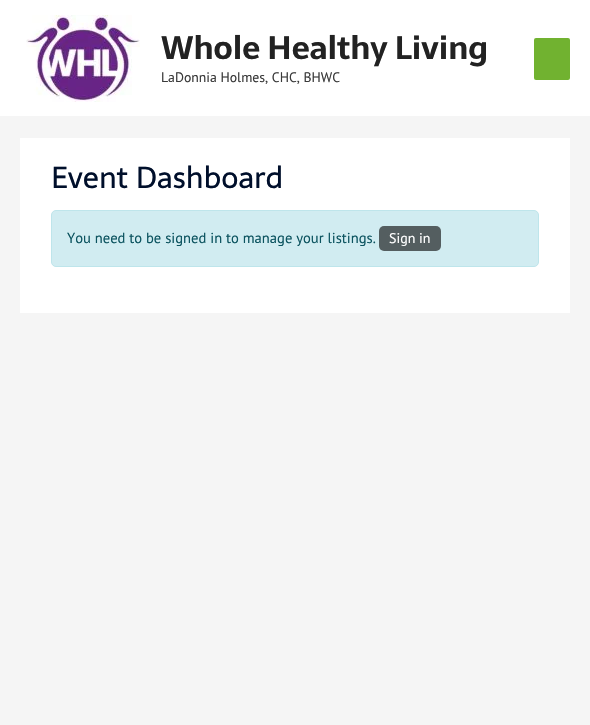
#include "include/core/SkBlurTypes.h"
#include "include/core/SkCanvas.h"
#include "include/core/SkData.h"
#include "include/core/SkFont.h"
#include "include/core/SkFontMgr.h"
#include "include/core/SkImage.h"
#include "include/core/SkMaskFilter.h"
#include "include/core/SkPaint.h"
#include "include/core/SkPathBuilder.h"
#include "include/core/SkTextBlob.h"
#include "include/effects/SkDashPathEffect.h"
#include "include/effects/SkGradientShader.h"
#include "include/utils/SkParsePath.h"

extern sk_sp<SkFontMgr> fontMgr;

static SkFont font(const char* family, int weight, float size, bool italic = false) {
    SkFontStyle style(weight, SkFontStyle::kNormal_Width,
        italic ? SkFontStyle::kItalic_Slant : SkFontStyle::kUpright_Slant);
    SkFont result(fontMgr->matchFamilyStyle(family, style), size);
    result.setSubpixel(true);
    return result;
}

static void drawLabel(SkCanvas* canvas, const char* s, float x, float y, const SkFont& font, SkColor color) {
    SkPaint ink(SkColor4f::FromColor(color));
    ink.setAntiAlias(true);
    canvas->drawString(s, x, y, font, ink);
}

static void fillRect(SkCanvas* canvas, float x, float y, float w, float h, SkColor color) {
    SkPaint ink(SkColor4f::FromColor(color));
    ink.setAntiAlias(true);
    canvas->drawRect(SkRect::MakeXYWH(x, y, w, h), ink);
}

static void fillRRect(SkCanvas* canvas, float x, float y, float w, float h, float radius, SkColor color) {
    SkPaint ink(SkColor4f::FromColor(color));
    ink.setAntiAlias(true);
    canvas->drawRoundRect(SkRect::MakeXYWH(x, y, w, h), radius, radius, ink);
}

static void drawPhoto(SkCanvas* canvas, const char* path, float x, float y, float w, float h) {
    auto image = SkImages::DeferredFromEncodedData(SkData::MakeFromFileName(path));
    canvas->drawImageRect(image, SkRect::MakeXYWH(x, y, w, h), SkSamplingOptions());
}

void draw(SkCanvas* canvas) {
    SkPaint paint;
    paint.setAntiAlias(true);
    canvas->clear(0xFFF5F5F5);
    fillRect(canvas, 0, 0, 590, 116, 0xFFFFFFFF);
    drawPhoto(canvas, "assets/img1.png", 26, 15, 114, 87);
    SkFont font1 = font("Sarala", 700, 32);
    drawLabel(canvas, "Whole Healthy Living", 161, 59, font1, 0xFF222222);
    SkFont font2 = font("PT Sans", 400, 13.75f);
    drawLabel(canvas, "LaDonnia Holmes, CHC, BHWC", 161, 82, font2, 0xFF3A3A3A);
    fillRRect(canvas, 534, 38, 36, 42, 2, 0xFF71B230);
    fillRect(canvas, 20, 138, 550, 175, 0xFFFFFFFF);
    SkFont font3 = font("Sarala", 400, 30);
    drawLabel(canvas, "Event Dashboard", 51, 188, font3, 0xFF000F2B);
    paint.setColor(0xFFD1ECF1);
    canvas->drawRoundRect(SkRect::MakeXYWH(51.5f, 210.5f, 487, 56), 4.5f, 4.5f, paint);
    paint.setStroke(true);
    paint.setStrokeWidth(1);
    paint.setColor(0xFFBEE5EB);
    canvas->drawRoundRect(SkRect::MakeXYWH(51.5f, 210.5f, 487, 56), 4.5f, 4.5f, paint);
    SkFont font4 = font("PT Sans", 400, 14.6f);
    drawLabel(canvas, "You need to be signed in to manage your listings.", 67, 243, font4, 0xFF0C5460);
    fillRRect(canvas, 379, 226, 62, 25, 5, 0xFF545E60);
    SkFont font5 = font("PT Sans", 400, 14);
    drawLabel(canvas, "Sign in", 389, 243, font5, 0xFFFFFFFF);
}
